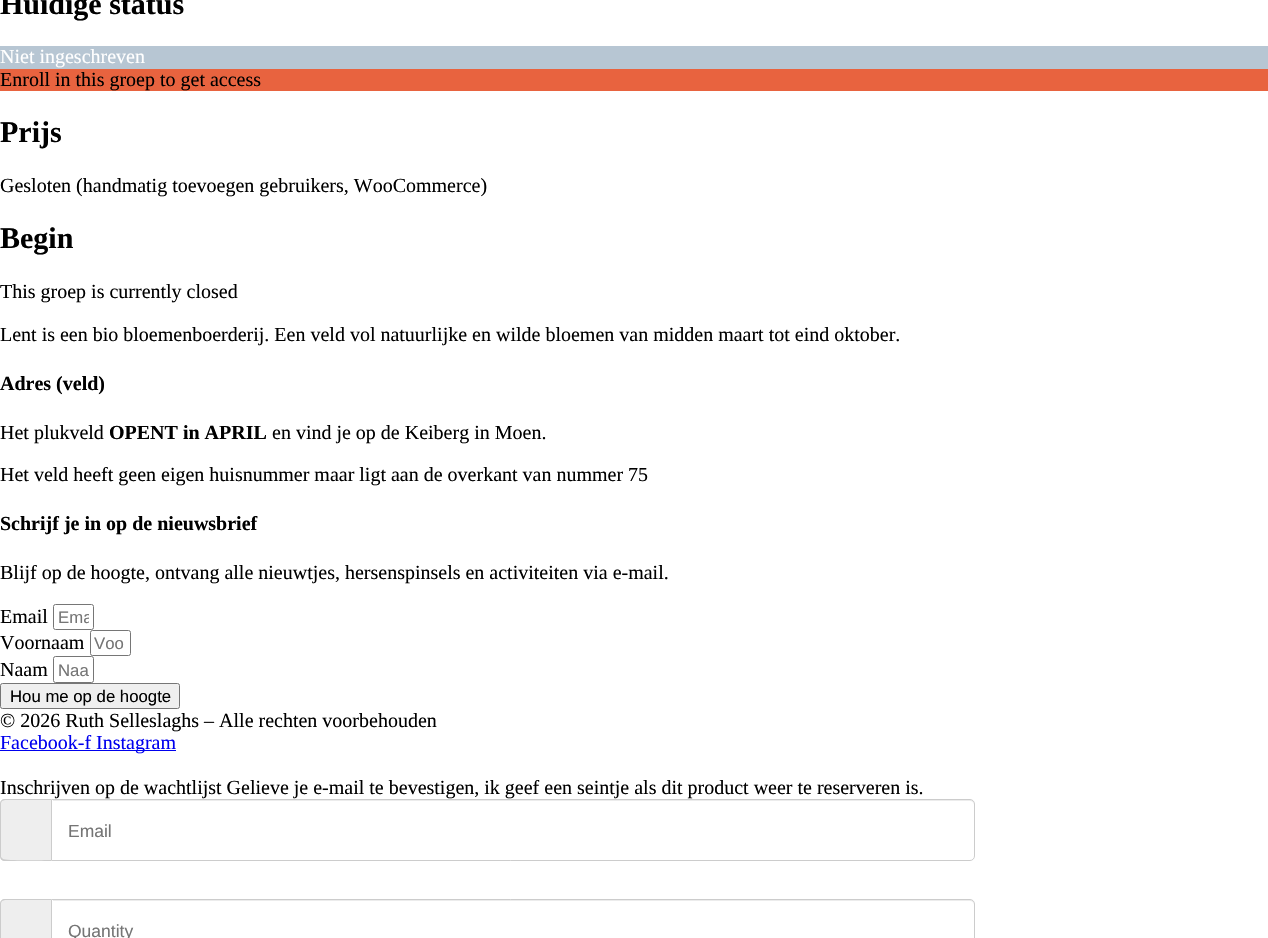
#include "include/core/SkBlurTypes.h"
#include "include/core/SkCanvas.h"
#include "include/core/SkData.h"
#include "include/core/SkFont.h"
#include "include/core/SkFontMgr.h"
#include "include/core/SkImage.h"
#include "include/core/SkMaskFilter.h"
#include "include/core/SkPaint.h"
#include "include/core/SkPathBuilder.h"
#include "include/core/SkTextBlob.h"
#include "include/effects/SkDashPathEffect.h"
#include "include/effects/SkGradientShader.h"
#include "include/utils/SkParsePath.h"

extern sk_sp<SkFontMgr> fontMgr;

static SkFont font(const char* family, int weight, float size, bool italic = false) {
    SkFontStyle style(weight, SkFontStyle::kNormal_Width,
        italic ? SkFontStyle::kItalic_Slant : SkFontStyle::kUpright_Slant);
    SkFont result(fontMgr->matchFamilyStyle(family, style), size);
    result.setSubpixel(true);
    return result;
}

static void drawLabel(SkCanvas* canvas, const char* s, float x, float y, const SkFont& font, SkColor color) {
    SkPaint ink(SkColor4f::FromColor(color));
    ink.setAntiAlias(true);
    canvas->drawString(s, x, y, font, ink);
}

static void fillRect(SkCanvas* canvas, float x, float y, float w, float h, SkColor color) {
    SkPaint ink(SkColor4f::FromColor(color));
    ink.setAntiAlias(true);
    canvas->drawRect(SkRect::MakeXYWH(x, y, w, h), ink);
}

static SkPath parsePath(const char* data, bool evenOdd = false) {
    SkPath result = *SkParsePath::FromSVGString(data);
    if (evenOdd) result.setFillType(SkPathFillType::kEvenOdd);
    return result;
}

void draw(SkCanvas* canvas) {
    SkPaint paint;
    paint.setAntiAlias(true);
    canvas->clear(0xFFFFFFFF);
    SkFont font1 = font("Liberation Serif", 700, 30);
    drawLabel(canvas, "Huidige status", 0, 14, font1, 0xFF000000);
    fillRect(canvas, 0, 46, 1268, 23, 0xFFB7C6D3);
    SkFont font2 = font("Liberation Serif", 400, 20);
    drawLabel(canvas, "Niet ingeschreven", 0, 63, font2, 0xFFFFFFFF);
    fillRect(canvas, 0, 69, 1268, 22, 0xFFE8633F);
    drawLabel(canvas, "Enroll in this groep to get access", 0, 86, font2, 0xFF000000);
    drawLabel(canvas, "Prijs", 0, 142, font1, 0xFF000000);
    drawLabel(canvas, "Gesloten (handmatig toevoegen gebruikers, WooCommerce)", 0, 192, font2, 0xFF000000);
    drawLabel(canvas, "Begin", 0, 248, font1, 0xFF000000);
    drawLabel(canvas, "This groep is currently closed", 0, 298, font2, 0xFF000000);
    drawLabel(canvas, "Lent is een bio bloemenboerderij. Een veld vol natuurlijke en wilde bloemen van midden maart tot eind oktober.", 0, 341, font2, 0xFF000000);
    SkFont font3 = font("Liberation Serif", 700, 20);
    drawLabel(canvas, "Adres (veld)", 0, 390, font3, 0xFF000000);
    drawLabel(canvas, "Het plukveld", 0, 439, font2, 0xFF000000);
    drawLabel(canvas, "OPENT in APRIL", 109, 439, font3, 0xFF000000);
    drawLabel(canvas, "en vind je op de Keiberg in Moen.", 272, 439, font2, 0xFF000000);
    drawLabel(canvas, "Het veld heeft geen eigen huisnummer maar ligt aan de overkant van nummer 75", 0, 481, font2, 0xFF000000);
    drawLabel(canvas, "Schrijf je in op de nieuwsbrief", 0, 530, font3, 0xFF000000);
    drawLabel(canvas, "Blijf op de hoogte, ontvang alle nieuwtjes, hersenspinsels en activiteiten via e-mail.", 0, 579, font2, 0xFF000000);
    drawLabel(canvas, "Email", 0, 623, font2, 0xFF000000);
    paint.setStroke(true);
    paint.setStrokeWidth(1);
    paint.setColor(0xFF767676);
    canvas->drawRoundRect(SkRect::MakeXYWH(53.5f, 604.5f, 40, 25), 2, 2, paint);
    canvas->save();
    canvas->clipRect(SkRect::MakeXYWH(58, 608, 31, 18));
    SkFont font4 = font("Liberation Sans", 400, 16.75f);
    drawLabel(canvas, "Ema", 58, 623, font4, 0xFF757575);
    canvas->restore();
    drawLabel(canvas, "Voornaam", 0, 649, font2, 0xFF000000);
    canvas->drawRoundRect(SkRect::MakeXYWH(90.5f, 630.5f, 40, 25), 2, 2, paint);
    drawLabel(canvas, "Voo", 94, 649, font4, 0xFF757575);
    drawLabel(canvas, "Naam", 0, 676, font2, 0xFF000000);
    canvas->drawRoundRect(SkRect::MakeXYWH(53.5f, 656.5f, 40, 26), 2, 2, paint);
    drawLabel(canvas, "Naa", 58, 676, font4, 0xFF757575);
    paint.setStroke(false);
    paint.setColor(0xFFEFEFEF);
    canvas->drawRoundRect(SkRect::MakeXYWH(0.5f, 683.5f, 179, 25), 2, 2, paint);
    paint.setStroke(true);
    paint.setColor(0xFF767676);
    canvas->drawRoundRect(SkRect::MakeXYWH(0.5f, 683.5f, 179, 25), 2, 2, paint);
    drawLabel(canvas, "Hou me op de hoogte", 10, 702, font4, 0xFF000000);
    drawLabel(canvas, "© 2026 Ruth Selleslaghs – Alle rechten voorbehouden", 0, 727, font2, 0xFF000000);
    fillRect(canvas, 0, 750, 176, 1, 0xFF0000EE);
    drawLabel(canvas, "Facebook-f Instagram", 0, 749, font2, 0xFF0000EE);
    drawLabel(canvas, "Inschrijven op de wachtlijst Gelieve je e-mail te bevestigen, ik geef een seintje als dit product weer te reserveren is.", 0, 794, font2, 0xFF000000);
    paint.setStroke(false);
    paint.setColor(0xFFEEEEEE);
    canvas->drawPath(parsePath("M5 799H51V861H5C2 861 0 859 0 856V804C0 801 2 799 5 799Z"), paint);
    paint.setColor(0xFFCCCCCC);
    canvas->drawPath(parsePath("M5 799H51V861H5C2 861 0 859 0 856V804C0 801 2 799 5 799ZM5 800H51V860C45 860 5 861 3 859L1 857V803L2 801Z", true), paint);
    paint.setColor(0xFFECECEC);
    canvas->drawPath(parsePath("M53 800V801H970C972 801 974 803 974 805C974 802 973 800 970 800Z"), paint);
    paint.setStroke(true);
    paint.setColor(0xFFCCCCCC);
    canvas->drawPath(parsePath("M51.5 799.5H970C972.5 799.5 974.5 801.5 974.5 804V856C974.5 858.5 972.5 860.5 970 860.5H51.5Z"), paint);
    SkFont font5 = font("Liberation Sans", 400, 17.5f);
    drawLabel(canvas, "Email", 68, 837, font5, 0xFF757575);
    paint.setStroke(false);
    paint.setColor(0xFFEEEEEE);
    canvas->drawPath(parsePath("M5 899H51V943H5C2 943 0 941 0 938V904C0 901 2 899 5 899Z"), paint);
    paint.setColor(0xFFCCCCCC);
    canvas->drawPath(parsePath("M5 899H51V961H5C2 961 0 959 0 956V904C0 901 2 899 5 899ZM5 900H51V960C45 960 5 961 3 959L1 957V903L2 901Z", true), paint);
    paint.setColor(0xFFECECEC);
    canvas->drawPath(parsePath("M53 900V901H970C972 901 974 903 974 905C974 902 973 900 970 900Z"), paint);
    paint.setStroke(true);
    paint.setColor(0xFFCCCCCC);
    canvas->drawPath(parsePath("M51.5 899.5H970C972.5 899.5 974.5 901.5 974.5 904V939C974.5 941.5 972.5 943.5 970 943.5H51.5Z"), paint);
    drawLabel(canvas, "Quantity", 68, 937, font5, 0xFF757575);
}
